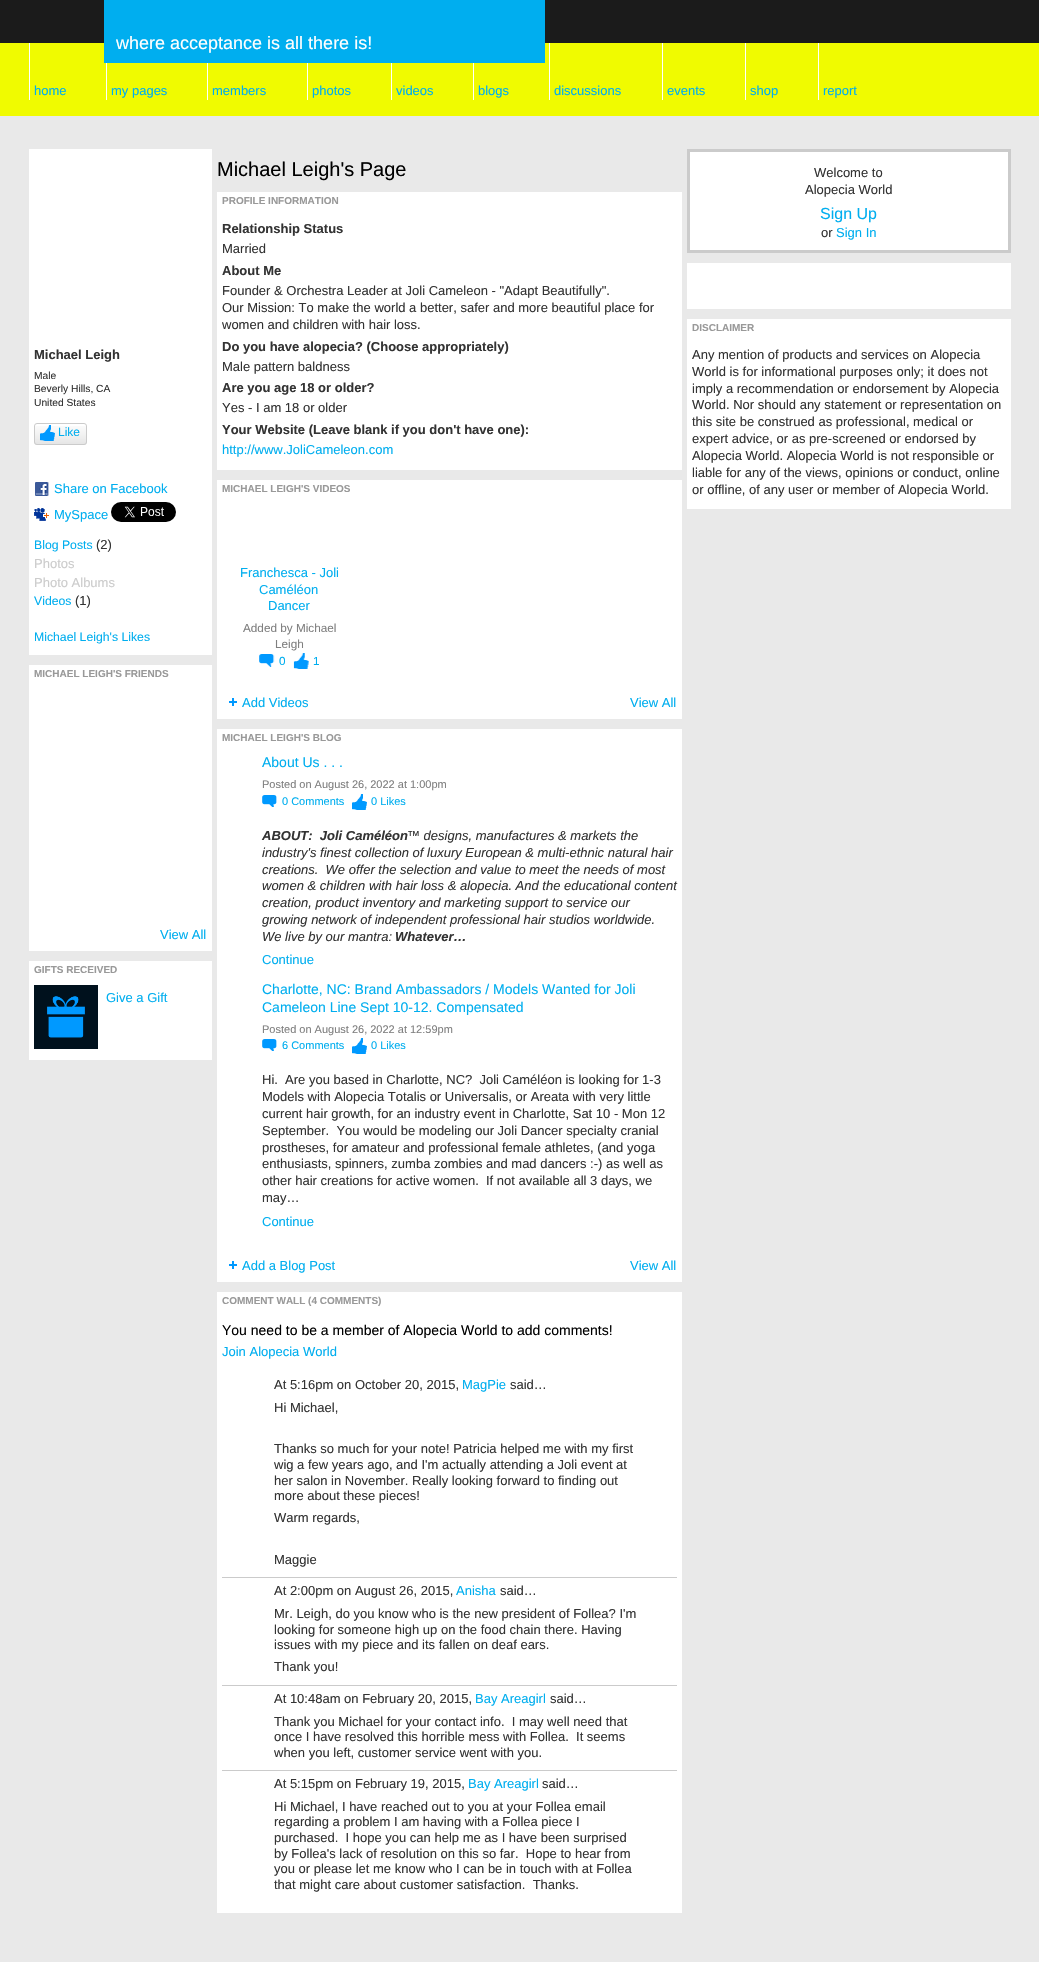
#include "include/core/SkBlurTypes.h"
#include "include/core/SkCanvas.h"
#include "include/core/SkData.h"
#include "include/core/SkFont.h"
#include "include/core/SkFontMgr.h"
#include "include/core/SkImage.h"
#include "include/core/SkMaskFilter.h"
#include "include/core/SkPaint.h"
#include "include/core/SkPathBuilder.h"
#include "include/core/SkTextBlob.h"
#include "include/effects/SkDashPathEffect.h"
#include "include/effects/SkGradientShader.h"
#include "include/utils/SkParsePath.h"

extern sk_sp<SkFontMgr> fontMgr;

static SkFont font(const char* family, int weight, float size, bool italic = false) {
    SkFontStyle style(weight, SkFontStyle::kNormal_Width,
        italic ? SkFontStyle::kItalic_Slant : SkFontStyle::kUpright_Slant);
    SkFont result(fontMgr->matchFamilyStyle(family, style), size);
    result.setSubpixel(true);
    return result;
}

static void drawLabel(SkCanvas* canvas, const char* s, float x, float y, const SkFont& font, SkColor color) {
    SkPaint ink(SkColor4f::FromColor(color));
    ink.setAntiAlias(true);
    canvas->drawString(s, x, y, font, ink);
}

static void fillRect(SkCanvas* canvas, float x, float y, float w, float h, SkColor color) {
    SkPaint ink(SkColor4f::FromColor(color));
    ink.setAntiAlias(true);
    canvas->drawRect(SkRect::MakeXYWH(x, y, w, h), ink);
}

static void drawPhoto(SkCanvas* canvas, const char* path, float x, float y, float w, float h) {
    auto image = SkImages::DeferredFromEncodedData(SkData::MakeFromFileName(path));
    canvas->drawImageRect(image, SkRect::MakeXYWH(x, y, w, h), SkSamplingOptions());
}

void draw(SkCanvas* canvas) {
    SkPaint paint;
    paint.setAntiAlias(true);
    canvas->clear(0xFF1B1B1B);
    fillRect(canvas, 0, 43, 1039, 73, 0xFFF0FB00);
    fillRect(canvas, 104, 0, 441, 63, 0xFF00AEEF);
    SkFont font1 = font("Liberation Sans", 400, 18);
    drawLabel(canvas, "where acceptance is all there is!", 116, 49, font1, 0xFFFFFFFF);
    fillRect(canvas, 29, 43, 1, 57, 0xFFFFFFFF);
    SkFont font2 = font("Liberation Sans", 400, 13);
    drawLabel(canvas, "home", 34, 95, font2, 0xFF00AEEF);
    fillRect(canvas, 106, 63, 1, 37, 0xFFFFFFFF);
    drawLabel(canvas, "my pages", 111, 95, font2, 0xFF00AEEF);
    fillRect(canvas, 207, 63, 1, 37, 0xFFFFFFFF);
    drawLabel(canvas, "members", 212, 95, font2, 0xFF00AEEF);
    fillRect(canvas, 307, 63, 1, 37, 0xFFFFFFFF);
    drawLabel(canvas, "photos", 312, 95, font2, 0xFF00AEEF);
    fillRect(canvas, 391, 63, 1, 37, 0xFFFFFFFF);
    drawLabel(canvas, "videos", 396, 95, font2, 0xFF00AEEF);
    fillRect(canvas, 473, 63, 1, 37, 0xFFFFFFFF);
    drawLabel(canvas, "blogs", 478, 95, font2, 0xFF00AEEF);
    fillRect(canvas, 549, 43, 1, 57, 0xFFFFFFFF);
    drawLabel(canvas, "discussions", 554, 95, font2, 0xFF00AEEF);
    fillRect(canvas, 662, 43, 1, 57, 0xFFFFFFFF);
    drawLabel(canvas, "events", 667, 95, font2, 0xFF00AEEF);
    fillRect(canvas, 745, 43, 1, 57, 0xFFFFFFFF);
    drawLabel(canvas, "shop", 750, 95, font2, 0xFF00AEEF);
    fillRect(canvas, 818, 43, 1, 57, 0xFFFFFFFF);
    drawLabel(canvas, "report", 823, 95, font2, 0xFF00AEEF);
    fillRect(canvas, 0, 116, 1039, 1846, 0xFFE9E9E9);
    fillRect(canvas, 29, 149, 183, 506, 0xFFFFFFFF);
    SkFont font3 = font("Liberation Sans", 700, 13);
    drawLabel(canvas, "Michael Leigh", 34, 359, font3, 0xFF333333);
    SkFont font4 = font("Liberation Sans", 400, 10.25f);
    drawLabel(canvas, "Male", 34, 379, font4, 0xFF333333);
    drawLabel(canvas, "Beverly Hills, CA", 34, 392, font4, 0xFF333333);
    drawLabel(canvas, "United States", 34, 406, font4, 0xFF333333);
    drawPhoto(canvas, "assets/img1.png", 34, 426, 53, 19);
    paint.setStroke(true);
    paint.setStrokeWidth(1);
    paint.setColor(0xFFCBCBCB);
    canvas->drawRoundRect(SkRect::MakeXYWH(34.5f, 423.5f, 52, 21), 2.5f, 2.5f, paint);
    drawPhoto(canvas, "assets/img2.png", 40, 425, 15, 16);
    SkFont font5 = font("Liberation Sans", 400, 12);
    drawLabel(canvas, "Like", 58, 436, font5, 0xFF00AEEF);
    drawPhoto(canvas, "assets/img3.png", 35, 482, 14, 14);
    drawLabel(canvas, "Share on Facebook", 54, 493, font2, 0xFF00AEEF);
    drawPhoto(canvas, "assets/img4.png", 34, 508, 15, 13);
    drawLabel(canvas, "MySpace", 54, 519, font2, 0xFF00AEEF);
    drawPhoto(canvas, "assets/img5.png", 111, 502, 65, 20);
    SkFont font6 = font("Liberation Sans", 400, 12.25f);
    drawLabel(canvas, "Blog Posts", 34, 549, font6, 0xFF00AEEF);
    drawLabel(canvas, "(2)", 96, 549, font2, 0xFF333333);
    drawLabel(canvas, "Photos", 34, 568, font2, 0xFFCCCCCC);
    drawLabel(canvas, "Photo Albums", 34, 587, font2, 0xFFCCCCCC);
    drawLabel(canvas, "Videos", 34, 605, font6, 0xFF00AEEF);
    drawLabel(canvas, "(1)", 75, 605, font2, 0xFF333333);
    drawLabel(canvas, "Michael Leigh's Likes", 34, 641, font6, 0xFF00AEEF);
    fillRect(canvas, 29, 665, 183, 286, 0xFFFFFFFF);
    SkFont font7 = font("Liberation Sans", 700, 10);
    drawLabel(canvas, "MICHAEL LEIGH'S FRIENDS", 34, 677, font7, 0xFF999999);
    drawLabel(canvas, "View All", 160, 939, font2, 0xFF00AEEF);
    fillRect(canvas, 29, 961, 183, 99, 0xFFFFFFFF);
    drawLabel(canvas, "GIFTS RECEIVED", 34, 973, font7, 0xFF999999);
    drawPhoto(canvas, "assets/img6.png", 34, 985, 64, 64);
    drawLabel(canvas, "Give a Gift", 106, 1002, font2, 0xFF00AEEF);
    SkFont font8 = font("Liberation Sans", 400, 20);
    drawLabel(canvas, "Michael Leigh's Page", 217, 176, font8, 0xFF000000);
    fillRect(canvas, 217, 192, 465, 278, 0xFFFFFFFF);
    drawLabel(canvas, "PROFILE INFORMATION", 222, 204, font7, 0xFF999999);
    drawLabel(canvas, "Relationship Status", 222, 233, font3, 0xFF333333);
    drawLabel(canvas, "Married", 222, 253, font2, 0xFF333333);
    drawLabel(canvas, "About Me", 222, 275, font3, 0xFF333333);
    drawLabel(canvas, "Founder & Orchestra Leader at Joli Cameleon - \"Adapt Beautifully\".", 222, 295, font2, 0xFF333333);
    drawLabel(canvas, "Our Mission: To make the world a better, safer and more beautiful place for", 222, 312, font2, 0xFF333333);
    drawLabel(canvas, "women and children with hair loss.", 222, 329, font2, 0xFF333333);
    drawLabel(canvas, "Do you have alopecia? (Choose appropriately)", 222, 351, font3, 0xFF333333);
    drawLabel(canvas, "Male pattern baldness", 222, 371, font2, 0xFF333333);
    drawLabel(canvas, "Are you age 18 or older?", 222, 392, font3, 0xFF333333);
    drawLabel(canvas, "Yes - I am 18 or older", 222, 412, font2, 0xFF333333);
    drawLabel(canvas, "Your Website (Leave blank if you don't have one):", 222, 434, font3, 0xFF333333);
    drawLabel(canvas, "http://www.JoliCameleon.com", 222, 454, font2, 0xFF00AEEF);
    fillRect(canvas, 217, 480, 465, 239, 0xFFFFFFFF);
    drawLabel(canvas, "MICHAEL LEIGH'S VIDEOS", 222, 492, font7, 0xFF999999);
    drawLabel(canvas, "Franchesca - Joli", 240, 577, font2, 0xFF00AEEF);
    drawLabel(canvas, "Caméléon", 259, 594, font2, 0xFF00AEEF);
    drawLabel(canvas, "Dancer", 268, 610, font2, 0xFF00AEEF);
    SkFont font9 = font("Liberation Sans", 400, 11.75f);
    drawLabel(canvas, "Added by Michael", 243, 632, font9, 0xFF7F7F7F);
    drawLabel(canvas, "Leigh", 275, 648, font9, 0xFF7F7F7F);
    drawPhoto(canvas, "assets/img7.png", 259, 654, 16, 13);
    drawLabel(canvas, "0", 279, 665, font9, 0xFF00AEEF);
    drawPhoto(canvas, "assets/img8.png", 293, 653, 16, 16);
    drawLabel(canvas, "1", 313, 665, font9, 0xFF00AEEF);
    drawPhoto(canvas, "assets/img9.png", 229, 698, 8, 8);
    drawLabel(canvas, "Add Videos", 242, 707, font2, 0xFF00AEEF);
    drawLabel(canvas, "View All", 630, 707, font2, 0xFF00AEEF);
    fillRect(canvas, 217, 729, 465, 553, 0xFFFFFFFF);
    drawLabel(canvas, "MICHAEL LEIGH'S BLOG", 222, 741, font7, 0xFF999999);
    SkFont font10 = font("Liberation Sans", 400, 14);
    drawLabel(canvas, "About Us . . .", 262, 767, font10, 0xFF00AEEF);
    SkFont font11 = font("Liberation Sans", 400, 11);
    drawLabel(canvas, "Posted on August 26, 2022 at 1:00pm", 262, 788, font11, 0xFF7F7F7F);
    drawPhoto(canvas, "assets/img10.png", 262, 795, 15, 12);
    drawLabel(canvas, "0 Comments", 282, 805, font11, 0xFF00AEEF);
    drawPhoto(canvas, "assets/img11.png", 352, 794, 15, 16);
    drawLabel(canvas, "0 Likes", 371, 805, font11, 0xFF00AEEF);
    SkFont font12 = font("Liberation Sans", 700, 13, true);
    drawLabel(canvas, "ABOUT:  Joli Caméléon", 262, 840, font12, 0xFF333333);
    SkFont font13 = font("Liberation Sans", 400, 13, true);
    drawLabel(canvas, "™ designs, manufactures & markets the", 407, 840, font13, 0xFF333333);
    drawLabel(canvas, "industry's finest collection of luxury European & multi-ethnic natural hair", 262, 857, font13, 0xFF333333);
    drawLabel(canvas, "creations.  We offer the selection and value to meet the needs of most", 262, 874, font13, 0xFF333333);
    drawLabel(canvas, "women & children with hair loss & alopecia. And the educational content", 262, 890, font13, 0xFF333333);
    drawLabel(canvas, "creation, product inventory and marketing support to service our", 262, 907, font13, 0xFF333333);
    drawLabel(canvas, "growing network of independent professional hair studios worldwide.", 262, 924, font13, 0xFF333333);
    drawLabel(canvas, "We live by our mantra:", 262, 941, font13, 0xFF333333);
    drawLabel(canvas, "Whatever…", 395, 941, font12, 0xFF333333);
    drawLabel(canvas, "Continue", 262, 964, font2, 0xFF00AEEF);
    drawLabel(canvas, "Charlotte, NC: Brand Ambassadors / Models Wanted for Joli", 262, 994, font10, 0xFF00AEEF);
    drawLabel(canvas, "Cameleon Line Sept 10-12. Compensated", 262, 1012, font10, 0xFF00AEEF);
    drawLabel(canvas, "Posted on August 26, 2022 at 12:59pm", 262, 1033, font11, 0xFF7F7F7F);
    drawPhoto(canvas, "assets/img10.png", 262, 1039, 15, 12);
    drawLabel(canvas, "6 Comments", 282, 1049, font11, 0xFF00AEEF);
    drawPhoto(canvas, "assets/img11.png", 352, 1038, 15, 16);
    drawLabel(canvas, "0 Likes", 371, 1049, font11, 0xFF00AEEF);
    drawLabel(canvas, "Hi.  Are you based in Charlotte, NC?  Joli Caméléon is looking for 1-3", 262, 1084, font2, 0xFF333333);
    drawLabel(canvas, "Models with Alopecia Totalis or Universalis, or Areata with very little", 262, 1101, font2, 0xFF333333);
    drawLabel(canvas, "current hair growth, for an industry event in Charlotte, Sat 10 - Mon 12", 262, 1118, font2, 0xFF333333);
    drawLabel(canvas, "September.  You would be modeling our Joli Dancer specialty cranial", 262, 1135, font2, 0xFF333333);
    drawLabel(canvas, "prostheses, for amateur and professional female athletes, (and yoga", 262, 1152, font2, 0xFF333333);
    drawLabel(canvas, "enthusiasts, spinners, zumba zombies and mad dancers :-) as well as", 262, 1168, font2, 0xFF333333);
    drawLabel(canvas, "other hair creations for active women.  If not available all 3 days, we", 262, 1185, font2, 0xFF333333);
    drawLabel(canvas, "may…", 262, 1202, font2, 0xFF333333);
    drawLabel(canvas, "Continue", 262, 1226, font2, 0xFF00AEEF);
    drawPhoto(canvas, "assets/img9.png", 229, 1261, 8, 8);
    drawLabel(canvas, "Add a Blog Post", 242, 1270, font2, 0xFF00AEEF);
    drawLabel(canvas, "View All", 630, 1270, font2, 0xFF00AEEF);
    fillRect(canvas, 217, 1292, 465, 621, 0xFFFFFFFF);
    drawLabel(canvas, "COMMENT WALL (4 COMMENTS)", 222, 1304, font7, 0xFF999999);
    drawLabel(canvas, "You need to be a member of Alopecia World to add comments!", 222, 1335, font10, 0xFF000000);
    drawLabel(canvas, "Join Alopecia World", 222, 1356, font2, 0xFF00AEEF);
    fillRect(canvas, 222, 1577, 455, 1, 0xFFCBCBCB);
    drawLabel(canvas, "At 5:16pm on October 20, 2015,", 274, 1389, font2, 0xFF333333);
    drawLabel(canvas, "MagPie", 462, 1389, font2, 0xFF00AEEF);
    drawLabel(canvas, "said…", 510, 1389, font2, 0xFF333333);
    drawLabel(canvas, "Hi Michael,", 274, 1412, font2, 0xFF333333);
    drawLabel(canvas, "Thanks so much for your note! Patricia helped me with my first", 274, 1453, font2, 0xFF333333);
    drawLabel(canvas, "wig a few years ago, and I'm actually attending a Joli event at", 274, 1469, font2, 0xFF333333);
    drawLabel(canvas, "her salon in November. Really looking forward to finding out", 274, 1485, font2, 0xFF333333);
    drawLabel(canvas, "more about these pieces!", 274, 1500, font2, 0xFF333333);
    drawLabel(canvas, "Warm regards,", 274, 1522, font2, 0xFF333333);
    drawLabel(canvas, "Maggie", 274, 1564, font2, 0xFF333333);
    fillRect(canvas, 222, 1685, 455, 1, 0xFFCBCBCB);
    drawLabel(canvas, "At 2:00pm on August 26, 2015,", 274, 1595, font2, 0xFF333333);
    drawLabel(canvas, "Anisha", 456, 1595, font2, 0xFF00AEEF);
    drawLabel(canvas, "said…", 500, 1595, font2, 0xFF333333);
    drawLabel(canvas, "Mr. Leigh, do you know who is the new president of Follea? I'm", 274, 1618, font2, 0xFF333333);
    drawLabel(canvas, "looking for someone high up on the food chain there. Having", 274, 1634, font2, 0xFF333333);
    drawLabel(canvas, "issues with my piece and its fallen on deaf ears.", 274, 1649, font2, 0xFF333333);
    drawLabel(canvas, "Thank you!", 274, 1671, font2, 0xFF333333);
    fillRect(canvas, 222, 1770, 455, 1, 0xFFCBCBCB);
    drawLabel(canvas, "At 10:48am on February 20, 2015,", 274, 1703, font2, 0xFF333333);
    drawLabel(canvas, "Bay Areagirl", 475, 1703, font2, 0xFF00AEEF);
    drawLabel(canvas, "said…", 550, 1703, font2, 0xFF333333);
    drawLabel(canvas, "Thank you Michael for your contact info.  I may well need that", 274, 1726, font2, 0xFF333333);
    drawLabel(canvas, "once I have resolved this horrible mess with Follea.  It seems", 274, 1741, font2, 0xFF333333);
    drawLabel(canvas, "when you left, customer service went with you.", 274, 1757, font2, 0xFF333333);
    drawLabel(canvas, "At 5:15pm on February 19, 2015,", 274, 1788, font2, 0xFF333333);
    drawLabel(canvas, "Bay Areagirl", 468, 1788, font2, 0xFF00AEEF);
    drawLabel(canvas, "said…", 542, 1788, font2, 0xFF333333);
    drawLabel(canvas, "Hi Michael, I have reached out to you at your Follea email", 274, 1811, font2, 0xFF333333);
    drawLabel(canvas, "regarding a problem I am having with a Follea piece I", 274, 1826, font2, 0xFF333333);
    drawLabel(canvas, "purchased.  I hope you can help me as I have been surprised", 274, 1842, font2, 0xFF333333);
    drawLabel(canvas, "by Follea's lack of resolution on this so far.  Hope to hear from", 274, 1858, font2, 0xFF333333);
    drawLabel(canvas, "you or please let me know who I can be in touch with at Follea", 274, 1873, font2, 0xFF333333);
    drawLabel(canvas, "that might care about customer satisfaction.  Thanks.", 274, 1889, font2, 0xFF333333);
    paint.setStroke(false);
    paint.setColor(0xFFFFFFFF);
    canvas->drawRect(SkRect::MakeXYWH(688.5f, 150.5f, 321, 101), paint);
    paint.setStroke(true);
    paint.setStrokeWidth(3);
    paint.setColor(0xFFCBCBCB);
    canvas->drawRect(SkRect::MakeXYWH(688.5f, 150.5f, 321, 101), paint);
    drawLabel(canvas, "Welcome to", 814, 177, font2, 0xFF333333);
    drawLabel(canvas, "Alopecia World", 805, 194, font2, 0xFF333333);
    SkFont font14 = font("Liberation Sans", 400, 16);
    drawLabel(canvas, "Sign Up", 820, 219, font14, 0xFF00AEEF);
    drawLabel(canvas, "or", 821, 237, font2, 0xFF333333);
    drawLabel(canvas, "Sign In", 836, 237, font2, 0xFF00AEEF);
    fillRect(canvas, 687, 263, 324, 46, 0xFFFFFFFF);
    fillRect(canvas, 687, 319, 324, 190, 0xFFFFFFFF);
    drawLabel(canvas, "DISCLAIMER", 692, 331, font7, 0xFF999999);
    drawLabel(canvas, "Any mention of products and services on Alopecia", 692, 359, font2, 0xFF333333);
    drawLabel(canvas, "World is for informational purposes only; it does not", 692, 376, font2, 0xFF333333);
    drawLabel(canvas, "imply a recommendation or endorsement by Alopecia", 692, 393, font2, 0xFF333333);
    drawLabel(canvas, "World. Nor should any statement or representation on", 692, 409, font2, 0xFF333333);
    drawLabel(canvas, "this site be construed as professional, medical or", 692, 426, font2, 0xFF333333);
    drawLabel(canvas, "expert advice, or as pre-screened or endorsed by", 692, 443, font2, 0xFF333333);
    drawLabel(canvas, "Alopecia World. Alopecia World is not responsible or", 692, 460, font2, 0xFF333333);
    drawLabel(canvas, "liable for any of the views, opinions or conduct, online", 692, 477, font2, 0xFF333333);
    drawLabel(canvas, "or offline, of any user or member of Alopecia World.", 692, 494, font2, 0xFF333333);
}
